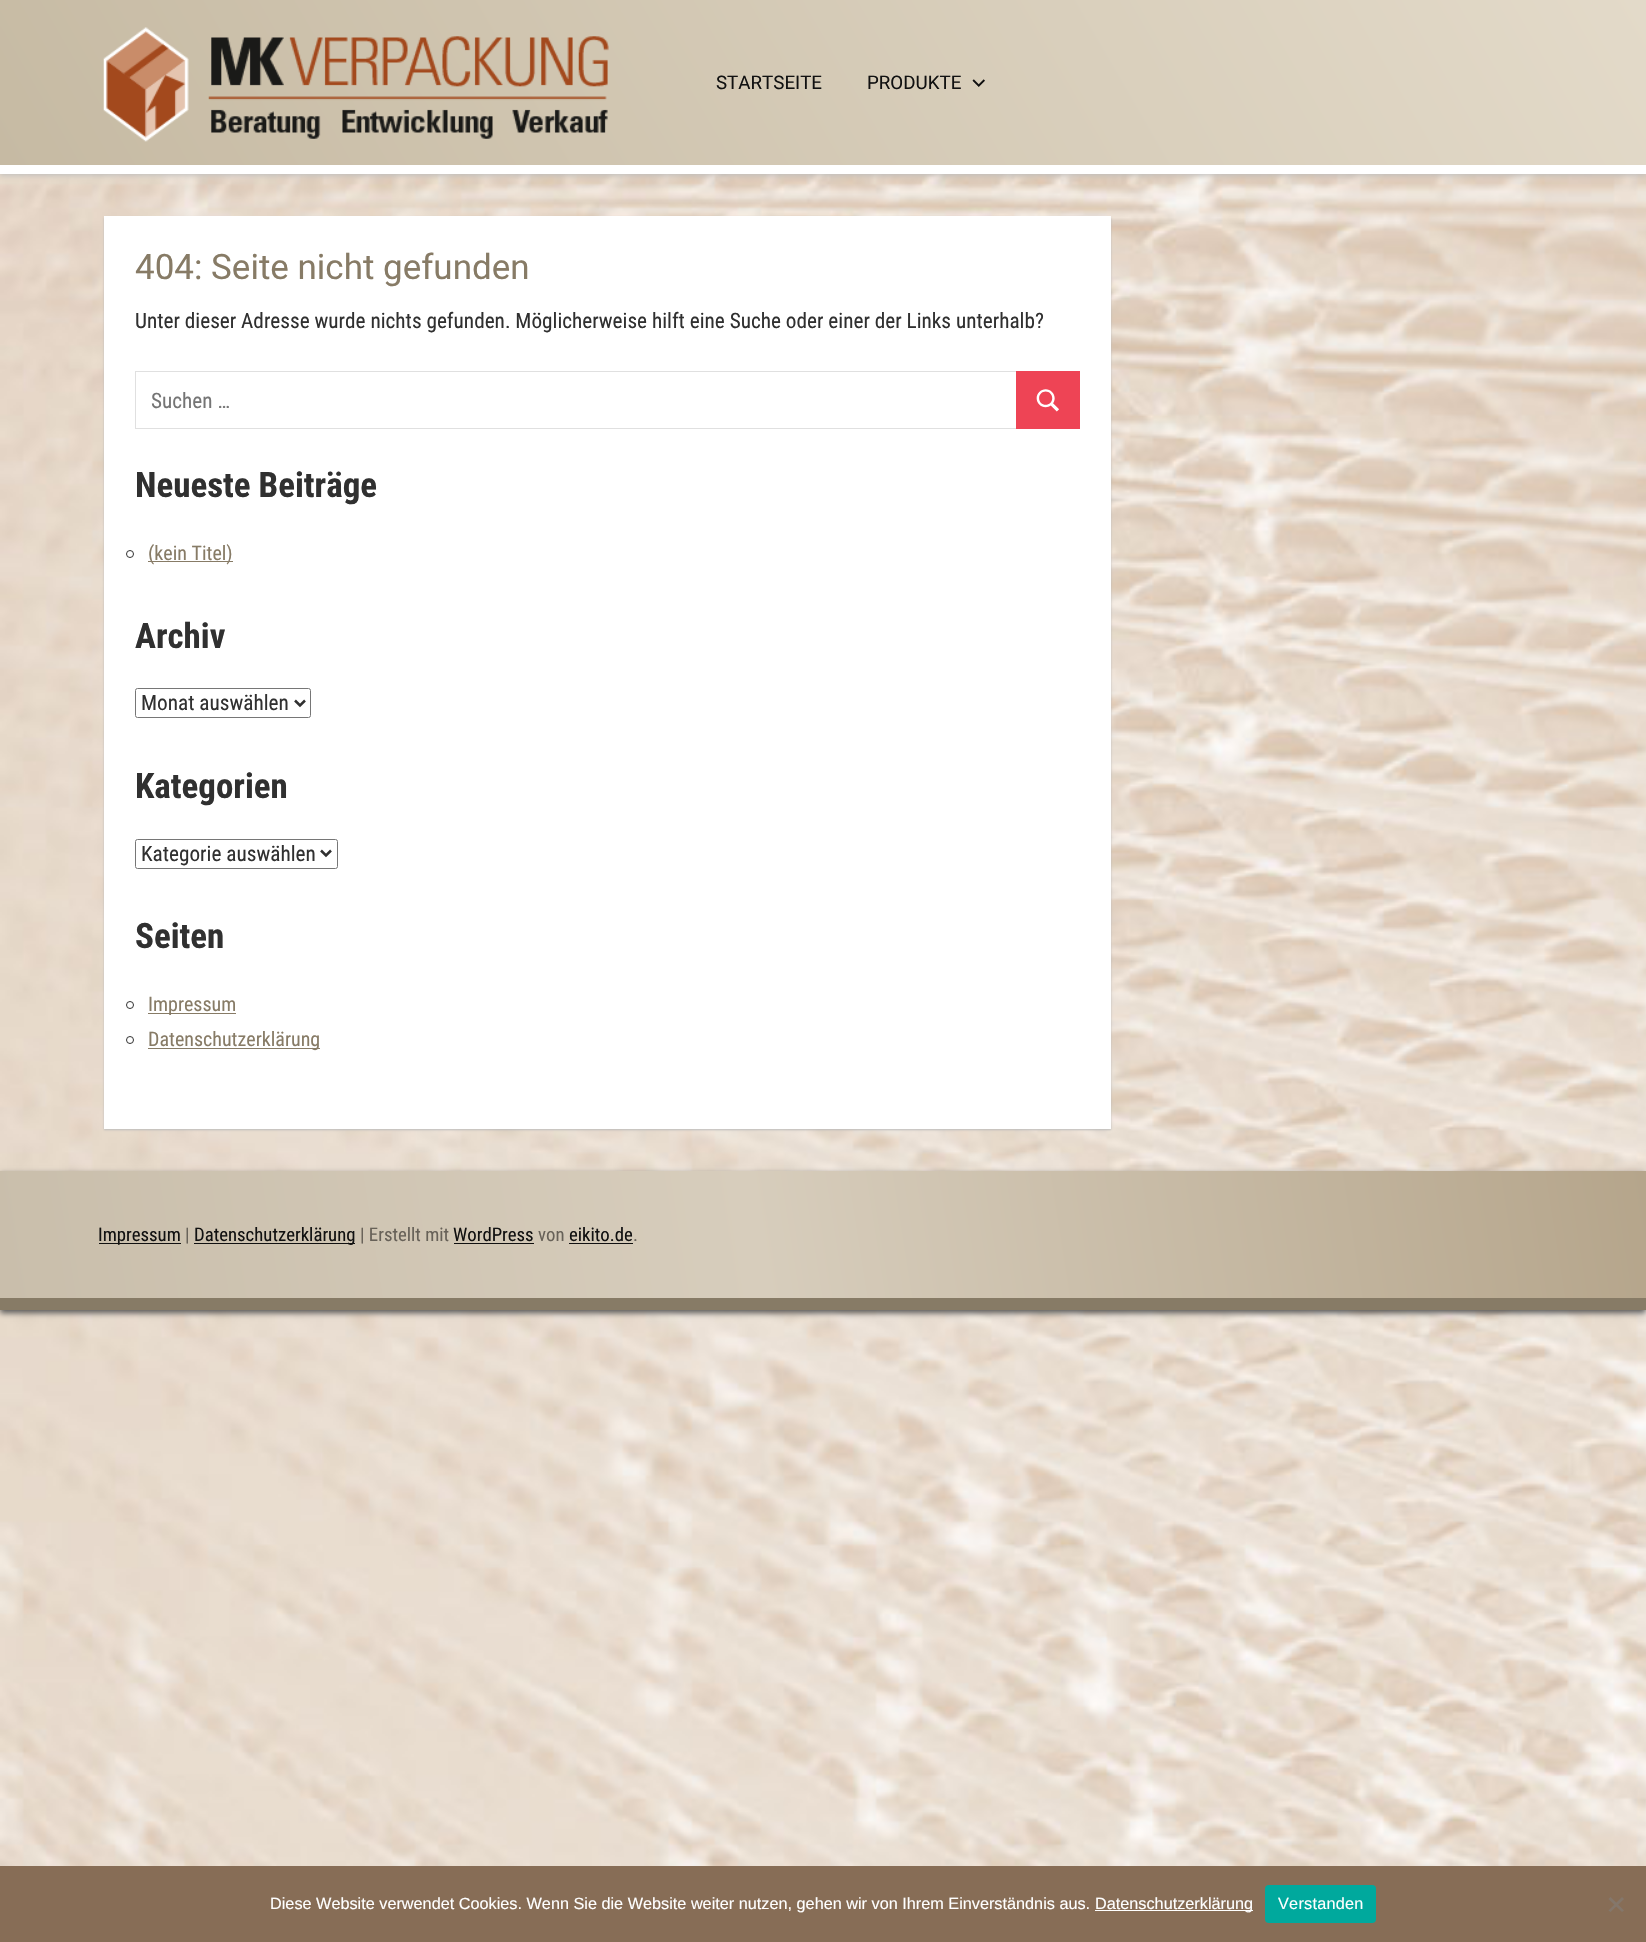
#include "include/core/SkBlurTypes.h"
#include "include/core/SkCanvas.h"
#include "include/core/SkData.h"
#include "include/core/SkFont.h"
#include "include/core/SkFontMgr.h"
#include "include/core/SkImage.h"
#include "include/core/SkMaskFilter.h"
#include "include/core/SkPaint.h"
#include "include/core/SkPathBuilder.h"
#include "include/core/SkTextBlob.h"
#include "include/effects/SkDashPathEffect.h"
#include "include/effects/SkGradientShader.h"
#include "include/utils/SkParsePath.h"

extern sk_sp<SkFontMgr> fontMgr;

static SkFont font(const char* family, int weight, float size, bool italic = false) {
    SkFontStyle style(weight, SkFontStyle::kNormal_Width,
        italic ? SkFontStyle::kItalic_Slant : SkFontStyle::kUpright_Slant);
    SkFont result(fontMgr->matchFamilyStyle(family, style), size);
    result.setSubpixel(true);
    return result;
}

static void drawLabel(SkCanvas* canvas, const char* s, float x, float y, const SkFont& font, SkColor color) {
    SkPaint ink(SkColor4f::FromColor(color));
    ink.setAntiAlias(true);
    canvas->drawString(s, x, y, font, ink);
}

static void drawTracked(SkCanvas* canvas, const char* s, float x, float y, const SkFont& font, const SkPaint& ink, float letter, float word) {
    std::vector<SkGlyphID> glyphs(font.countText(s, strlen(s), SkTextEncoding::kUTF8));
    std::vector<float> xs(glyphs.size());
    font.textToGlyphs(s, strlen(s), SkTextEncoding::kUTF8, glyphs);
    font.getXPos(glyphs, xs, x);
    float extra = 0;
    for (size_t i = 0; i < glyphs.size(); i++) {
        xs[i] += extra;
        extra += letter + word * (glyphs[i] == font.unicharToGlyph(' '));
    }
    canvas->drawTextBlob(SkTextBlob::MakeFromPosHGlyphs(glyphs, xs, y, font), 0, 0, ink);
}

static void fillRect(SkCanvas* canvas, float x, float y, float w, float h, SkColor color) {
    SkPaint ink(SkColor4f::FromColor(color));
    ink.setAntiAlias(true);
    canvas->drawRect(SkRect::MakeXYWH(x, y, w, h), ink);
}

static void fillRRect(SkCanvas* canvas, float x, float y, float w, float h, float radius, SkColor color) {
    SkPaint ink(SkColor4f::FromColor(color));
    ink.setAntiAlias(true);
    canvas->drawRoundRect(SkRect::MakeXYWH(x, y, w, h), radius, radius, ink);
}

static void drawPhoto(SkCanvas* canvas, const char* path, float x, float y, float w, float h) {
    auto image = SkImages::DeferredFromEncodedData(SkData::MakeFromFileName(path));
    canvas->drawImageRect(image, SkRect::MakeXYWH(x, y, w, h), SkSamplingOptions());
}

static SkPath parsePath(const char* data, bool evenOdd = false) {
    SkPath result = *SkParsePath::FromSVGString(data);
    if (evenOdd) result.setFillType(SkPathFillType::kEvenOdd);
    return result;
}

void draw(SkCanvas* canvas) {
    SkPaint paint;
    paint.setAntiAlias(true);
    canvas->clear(0xFFFFFFFF);
    drawPhoto(canvas, "assets/img1.png", 0, 174, 1646, 1692);
    paint.setColor(0xFFBBBBBB);
    paint.setMaskFilter(SkMaskFilter::MakeBlur(kNormal_SkBlurStyle, 3));
    canvas->drawRect(SkRect::MakeXYWH(0, 1, 1646, 174), paint);
    paint.setMaskFilter(nullptr);
    {
        const SkColor colors[] = {0xFFE3DAC9, 0xFFC6BAA3};
        const float stops[] = {0, 1};
        const SkPoint ends[] = {{1476, -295}, {170, 460}};
        paint.setShader(SkGradientShader::MakeLinear(ends, colors, stops, 2, SkTileMode::kClamp));
        paint.setAlpha(255);
    }
    canvas->drawRect(SkRect::MakeXYWH(0, 0, 1646, 165), paint);
    fillRect(canvas, 0, 165, 1646, 9, 0xFFFFFFFF);
    drawPhoto(canvas, "assets/img2.png", 103, 27, 506, 115);
    SkFont font1 = font("Roboto", 400, 18.75f);
    drawLabel(canvas, "STARTSEITE", 716, 89, font1, 0xFF111111);
    drawLabel(canvas, "PRODUKTE", 867, 89, font1, 0xFF111111);
    drawPhoto(canvas, "assets/img3.png", 972, 79, 13, 8);
    paint.setShader(nullptr);
    paint.setColor(0xFFBBBBBB);
    paint.setMaskFilter(SkMaskFilter::MakeBlur(kNormal_SkBlurStyle, 1));
    canvas->drawRect(SkRect::MakeXYWH(104, 218, 1007, 912), paint);
    paint.setMaskFilter(nullptr);
    fillRect(canvas, 104, 216, 1007, 913, 0xFFFFFFFF);
    SkFont font2 = font("Roboto", 400, 35);
    drawLabel(canvas, "404: Seite nicht gefunden", 135, 279, font2, 0xFF877B66);
    SkFont font3 = font("Roboto Condensed", 400, 21.25f);
    drawLabel(canvas, "Unter dieser Adresse wurde nichts gefunden. Möglicherweise hilft eine Suche oder einer der Links unterhalb?", 135, 328, font3, 0xFF303030);
    paint.setStroke(true);
    paint.setStrokeWidth(1);
    paint.setColor(0xFFE0E0E0);
    canvas->drawRect(SkRect::MakeXYWH(135.5f, 371.5f, 882, 57), paint);
    drawLabel(canvas, "Suchen …", 151, 408, font3, 0xFF757575);
    fillRect(canvas, 1016, 371, 64, 58, 0xFFEE4455);
    drawPhoto(canvas, "assets/img4.png", 1036, 389, 23, 23);
    SkFont font4 = font("Roboto Condensed", 700, 35);
    drawLabel(canvas, "Neueste Beiträge", 135, 497, font4, 0xFF303030);
    paint.setColor(0xFF303030);
    canvas->drawCircle(130, 554, 3.5f, paint);
    fillRect(canvas, 148, 561, 85, 1, 0xFF877B66);
    SkFont font5 = font("Roboto Condensed", 400, 20);
    drawLabel(canvas, "(kein Titel)", 148, 560, font5, 0xFF877B66);
    drawLabel(canvas, "Archiv", 135, 648, font4, 0xFF303030);
    paint.setColor(0xFF767676);
    canvas->drawRoundRect(SkRect::MakeXYWH(135.5f, 688.5f, 175, 29), 2, 2, paint);
    paint.setStrokeWidth(2.5f);
    paint.setColor(0xFF303030);
    canvas->drawPath(parsePath("M295 700.5L300 705.5L305 700.5"), paint);
    drawLabel(canvas, "Monat auswählen", 141, 710, font3, 0xFF303030);
    drawLabel(canvas, "Kategorien", 135, 798, font4, 0xFF303030);
    paint.setStrokeWidth(1);
    paint.setColor(0xFF767676);
    canvas->drawRoundRect(SkRect::MakeXYWH(135.5f, 839.5f, 202, 29), 2, 2, paint);
    paint.setStrokeWidth(2.5f);
    paint.setColor(0xFF303030);
    canvas->drawPath(parsePath("M321 850.5L326 855.5L331 850.5"), paint);
    drawLabel(canvas, "Kategorie auswählen", 141, 861, font3, 0xFF303030);
    drawLabel(canvas, "Seiten", 135, 948, font4, 0xFF303030);
    paint.setStrokeWidth(1);
    canvas->drawCircle(130, 1005, 3.5f, paint);
    fillRect(canvas, 148, 1013, 88, 1, 0xFF877B66);
    drawLabel(canvas, "Impressum", 148, 1011, font5, 0xFF877B66);
    canvas->drawCircle(130, 1040, 3.5f, paint);
    fillRect(canvas, 148, 1048, 172, 1, 0xFF877B66);
    drawLabel(canvas, "Datenschutzerklärung", 148, 1046, font5, 0xFF877B66);
    paint.setStroke(false);
    paint.setColor(0xFF575757);
    paint.setMaskFilter(SkMaskFilter::MakeBlur(kNormal_SkBlurStyle, 3));
    canvas->drawRect(SkRect::MakeXYWH(0, 1174, 1646, 139), paint);
    paint.setMaskFilter(nullptr);
    {
        const SkColor colors[] = {0xFFC9BEAB, 0xFFD7CDBC, 0xFFB5A58B};
        const float stops[] = {0, 0.46f, 1};
        const SkPoint ends[] = {{10, 1363}, {1636, 1106}};
        paint.setShader(SkGradientShader::MakeLinear(ends, colors, stops, 3, SkTileMode::kClamp));
        paint.setAlpha(255);
    }
    canvas->drawRect(SkRect::MakeXYWH(0, 1171, 1646, 127), paint);
    fillRect(canvas, 0, 1298, 1646, 12, 0xFF877B66);
    fillRect(canvas, 99, 1243, 82, 1, 0xFF111111);
    SkFont font6 = font("Roboto Condensed", 400, 18.75f);
    drawLabel(canvas, "Impressum", 98, 1241, font6, 0xFF111111);
    drawLabel(canvas, "|", 185, 1241, font6, 0xFF676158);
    fillRect(canvas, 194, 1243, 161, 1, 0xFF111111);
    drawLabel(canvas, "Datenschutzerklärung", 194, 1241, font6, 0xFF111111);
    drawLabel(canvas, "| Erstellt mit", 360, 1241, font6, 0xFF676158);
    drawLabel(canvas, "WordPress", 453, 1241, font6, 0xFF111111);
    fillRect(canvas, 454, 1243, 80, 1, 0xFF111111);
    drawLabel(canvas, "von", 538, 1241, font6, 0xFF676158);
    drawLabel(canvas, "eikito.de", 569, 1241, font6, 0xFF111111);
    drawLabel(canvas, ".", 633, 1241, font6, 0xFF676158);
    fillRect(canvas, 569, 1243, 64, 1, 0xFF111111);
    fillRect(canvas, 0, 1866, 1646, 76, 0xFF876D56);
    SkFont font7 = font("Liberation Sans", 400, 16.25f);
    drawLabel(canvas, "Diese Website verwendet Cookies. Wenn Sie die Website weiter nutzen, gehen wir von Ihrem Einverständnis aus.", 270, 1909, font7, 0xFFFFFFFF);
    fillRect(canvas, 1095, 1910, 158, 1, 0xFFFFFFFF);
    drawLabel(canvas, "Datenschutzerklärung", 1095, 1909, font7, 0xFFFFFFFF);
    fillRRect(canvas, 1265, 1885, 111, 38, 4, 0xFF00A99D);
    paint.setShader(nullptr);
    paint.setColor(0xFFFFFFFF);
    drawTracked(canvas, "Verstanden", 1278, 1909, font7, paint, 0.25f, 0);
    paint.setColor(0xFF84776B);
    canvas->drawPath(parsePath("M1622 1897L1624 1899L1610.5 1912L1608.5 1910.5Z"), paint);
    canvas->drawPath(parsePath("M1608.5 1899L1610.5 1897L1624 1910.5L1622 1912Z"), paint);
}
